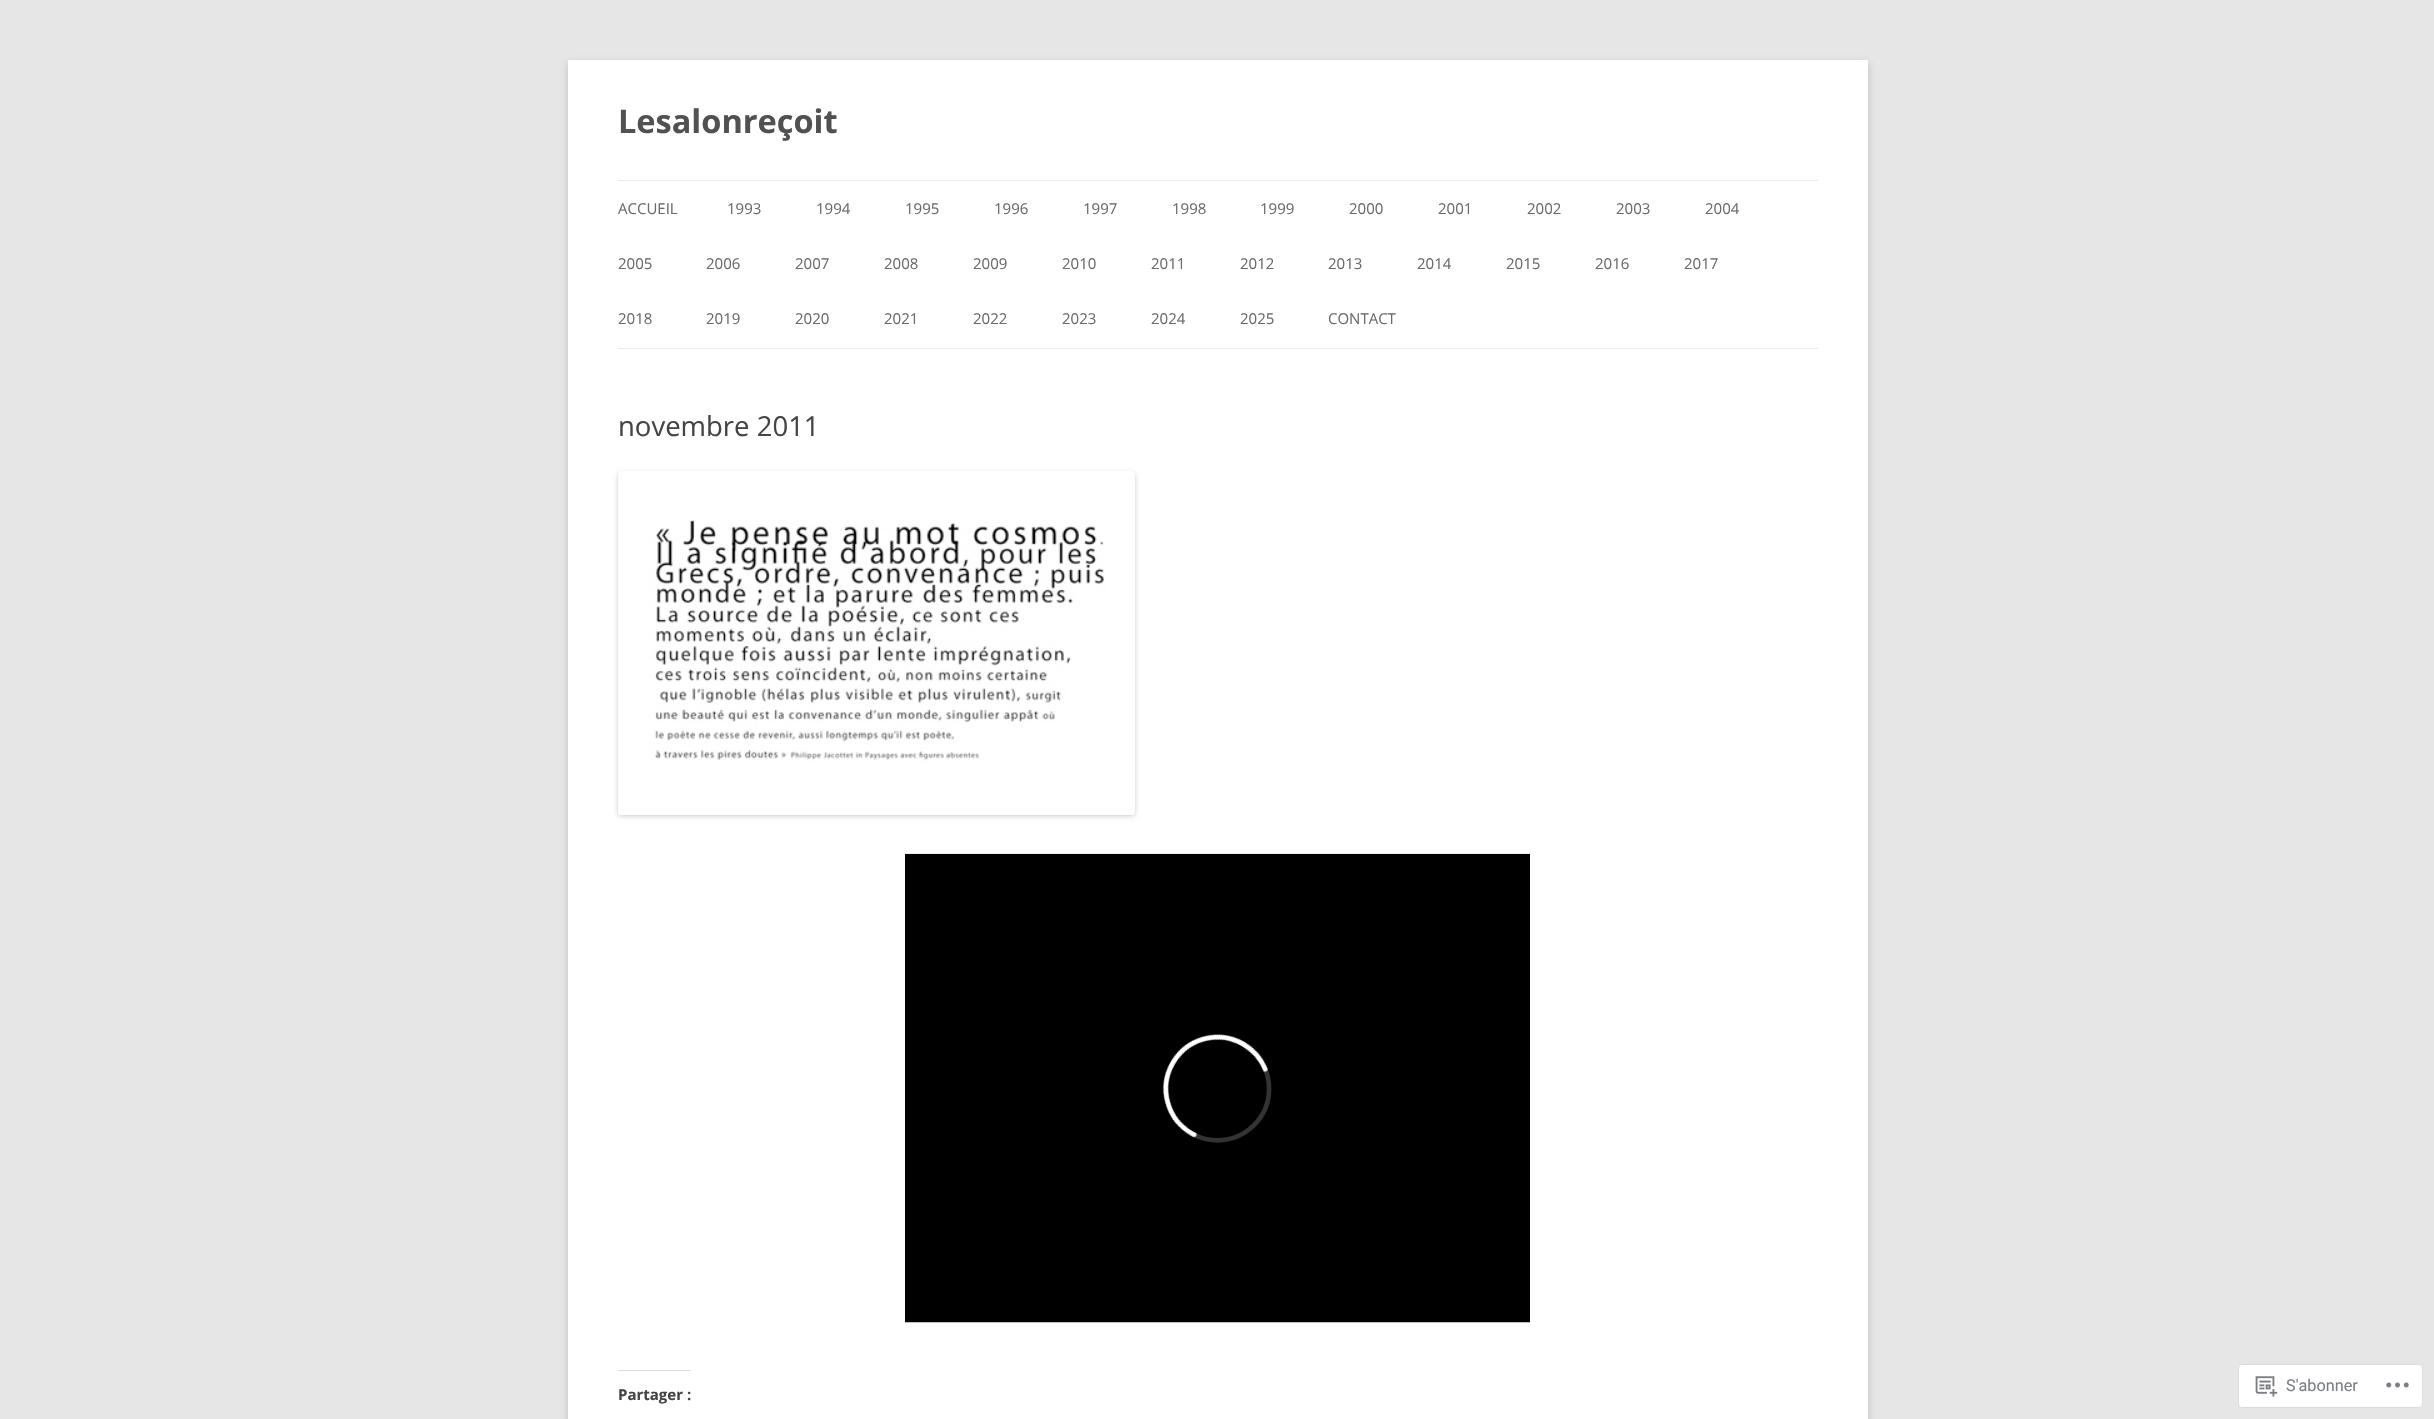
#include "include/core/SkBlurTypes.h"
#include "include/core/SkCanvas.h"
#include "include/core/SkData.h"
#include "include/core/SkFont.h"
#include "include/core/SkFontMgr.h"
#include "include/core/SkImage.h"
#include "include/core/SkMaskFilter.h"
#include "include/core/SkPaint.h"
#include "include/core/SkPathBuilder.h"
#include "include/core/SkTextBlob.h"
#include "include/effects/SkDashPathEffect.h"
#include "include/effects/SkGradientShader.h"
#include "include/utils/SkParsePath.h"

extern sk_sp<SkFontMgr> fontMgr;

static SkFont font(const char* family, int weight, float size, bool italic = false) {
    SkFontStyle style(weight, SkFontStyle::kNormal_Width,
        italic ? SkFontStyle::kItalic_Slant : SkFontStyle::kUpright_Slant);
    SkFont result(fontMgr->matchFamilyStyle(family, style), size);
    result.setSubpixel(true);
    return result;
}

static void drawLabel(SkCanvas* canvas, const char* s, float x, float y, const SkFont& font, SkColor color) {
    SkPaint ink(SkColor4f::FromColor(color));
    ink.setAntiAlias(true);
    canvas->drawString(s, x, y, font, ink);
}

static void fillRect(SkCanvas* canvas, float x, float y, float w, float h, SkColor color) {
    SkPaint ink(SkColor4f::FromColor(color));
    ink.setAntiAlias(true);
    canvas->drawRect(SkRect::MakeXYWH(x, y, w, h), ink);
}

static void drawPhoto(SkCanvas* canvas, const char* path, float x, float y, float w, float h) {
    auto image = SkImages::DeferredFromEncodedData(SkData::MakeFromFileName(path));
    canvas->drawImageRect(image, SkRect::MakeXYWH(x, y, w, h), SkSamplingOptions());
}

static SkPath parsePath(const char* data, bool evenOdd = false) {
    SkPath result = *SkParsePath::FromSVGString(data);
    if (evenOdd) result.setFillType(SkPathFillType::kEvenOdd);
    return result;
}

void draw(SkCanvas* canvas) {
    SkPaint paint;
    paint.setAntiAlias(true);
    canvas->clear(0xFFE6E6E6);
    paint.setColor(0x4D646464);
    paint.setMaskFilter(SkMaskFilter::MakeBlur(kNormal_SkBlurStyle, 4));
    canvas->drawRect(SkRect::MakeXYWH(568, 63, 1300, 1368), paint);
    paint.setMaskFilter(nullptr);
    fillRect(canvas, 568, 60, 1300, 1359, 0xFFFFFFFF);
    SkFont font1 = font("Open Sans", 700, 32.5f);
    drawLabel(canvas, "Lesalonreçoit", 618, 133, font1, 0xFF515151);
    fillRect(canvas, 618, 180, 1200, 1, 0xFFEDEDED);
    fillRect(canvas, 618, 348, 1200, 1, 0xFFEDEDED);
    SkFont font2 = font("Open Sans", 400, 15);
    drawLabel(canvas, "ACCUEIL", 618, 214, font2, 0xFF6A6A6A);
    drawLabel(canvas, "1993", 727, 214, font2, 0xFF6A6A6A);
    drawLabel(canvas, "1994", 816, 214, font2, 0xFF6A6A6A);
    drawLabel(canvas, "1995", 905, 214, font2, 0xFF6A6A6A);
    drawLabel(canvas, "1996", 994, 214, font2, 0xFF6A6A6A);
    drawLabel(canvas, "1997", 1083, 214, font2, 0xFF6A6A6A);
    drawLabel(canvas, "1998", 1172, 214, font2, 0xFF6A6A6A);
    drawLabel(canvas, "1999", 1260, 214, font2, 0xFF6A6A6A);
    drawLabel(canvas, "2000", 1349, 214, font2, 0xFF6A6A6A);
    drawLabel(canvas, "2001", 1438, 214, font2, 0xFF6A6A6A);
    drawLabel(canvas, "2002", 1527, 214, font2, 0xFF6A6A6A);
    drawLabel(canvas, "2003", 1616, 214, font2, 0xFF6A6A6A);
    drawLabel(canvas, "2004", 1705, 214, font2, 0xFF6A6A6A);
    drawLabel(canvas, "2005", 618, 269, font2, 0xFF6A6A6A);
    drawLabel(canvas, "2006", 706, 269, font2, 0xFF6A6A6A);
    drawLabel(canvas, "2007", 795, 269, font2, 0xFF6A6A6A);
    drawLabel(canvas, "2008", 884, 269, font2, 0xFF6A6A6A);
    drawLabel(canvas, "2009", 973, 269, font2, 0xFF6A6A6A);
    drawLabel(canvas, "2010", 1062, 269, font2, 0xFF6A6A6A);
    drawLabel(canvas, "2011", 1151, 269, font2, 0xFF6A6A6A);
    drawLabel(canvas, "2012", 1240, 269, font2, 0xFF6A6A6A);
    drawLabel(canvas, "2013", 1328, 269, font2, 0xFF6A6A6A);
    drawLabel(canvas, "2014", 1417, 269, font2, 0xFF6A6A6A);
    drawLabel(canvas, "2015", 1506, 269, font2, 0xFF6A6A6A);
    drawLabel(canvas, "2016", 1595, 269, font2, 0xFF6A6A6A);
    drawLabel(canvas, "2017", 1684, 269, font2, 0xFF6A6A6A);
    drawLabel(canvas, "2018", 618, 324, font2, 0xFF6A6A6A);
    drawLabel(canvas, "2019", 706, 324, font2, 0xFF6A6A6A);
    drawLabel(canvas, "2020", 795, 324, font2, 0xFF6A6A6A);
    drawLabel(canvas, "2021", 884, 324, font2, 0xFF6A6A6A);
    drawLabel(canvas, "2022", 973, 324, font2, 0xFF6A6A6A);
    drawLabel(canvas, "2023", 1062, 324, font2, 0xFF6A6A6A);
    drawLabel(canvas, "2024", 1151, 324, font2, 0xFF6A6A6A);
    drawLabel(canvas, "2025", 1240, 324, font2, 0xFF6A6A6A);
    drawLabel(canvas, "CONTACT", 1328, 324, font2, 0xFF6A6A6A);
    SkFont font3 = font("Open Sans", 400, 27.5f);
    drawLabel(canvas, "novembre 2011", 618, 436, font3, 0xFF444444);
    canvas->save();
    canvas->clipPath(parsePath("M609 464H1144V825H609ZM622 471H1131C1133 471 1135 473 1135 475V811C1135 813 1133 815 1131 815H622C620 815 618 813 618 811V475C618 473 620 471 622 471Z", true), true);
    paint.setColor(0x33000000);
    paint.setMaskFilter(SkMaskFilter::MakeBlur(kNormal_SkBlurStyle, 2.5f));
    canvas->drawRoundRect(SkRect::MakeXYWH(618, 473, 517, 343), 4, 4, paint);
    paint.setMaskFilter(nullptr);
    canvas->restore();
    drawPhoto(canvas, "assets/img1.png", 618, 520, 517, 295);
    drawPhoto(canvas, "assets/img2.png", 905, 853, 625, 470);
    fillRect(canvas, 618, 1370, 73, 1, 0xFFDCDCDE);
    SkFont font4 = font("Open Sans", 700, 15);
    drawLabel(canvas, "Partager :", 618, 1400, font4, 0xFF444444);
    paint.setColor(0xFFFFFFFF);
    canvas->drawRoundRect(SkRect::MakeXYWH(2238.5f, 1364.5f, 184, 43), 3.5f, 3.5f, paint);
    paint.setStroke(true);
    paint.setStrokeWidth(1);
    paint.setColor(0xFFDCDCDE);
    canvas->drawRoundRect(SkRect::MakeXYWH(2238.5f, 1364.5f, 184, 43), 3.5f, 3.5f, paint);
    drawPhoto(canvas, "assets/img3.png", 2255, 1376, 23, 21);
    SkFont font5 = font("Roboto", 400, 16.25f);
    drawLabel(canvas, "S'abonner", 2286, 1391, font5, 0xFF7A7E84);
    drawPhoto(canvas, "assets/img4.png", 2386, 1382, 23, 6);
}
